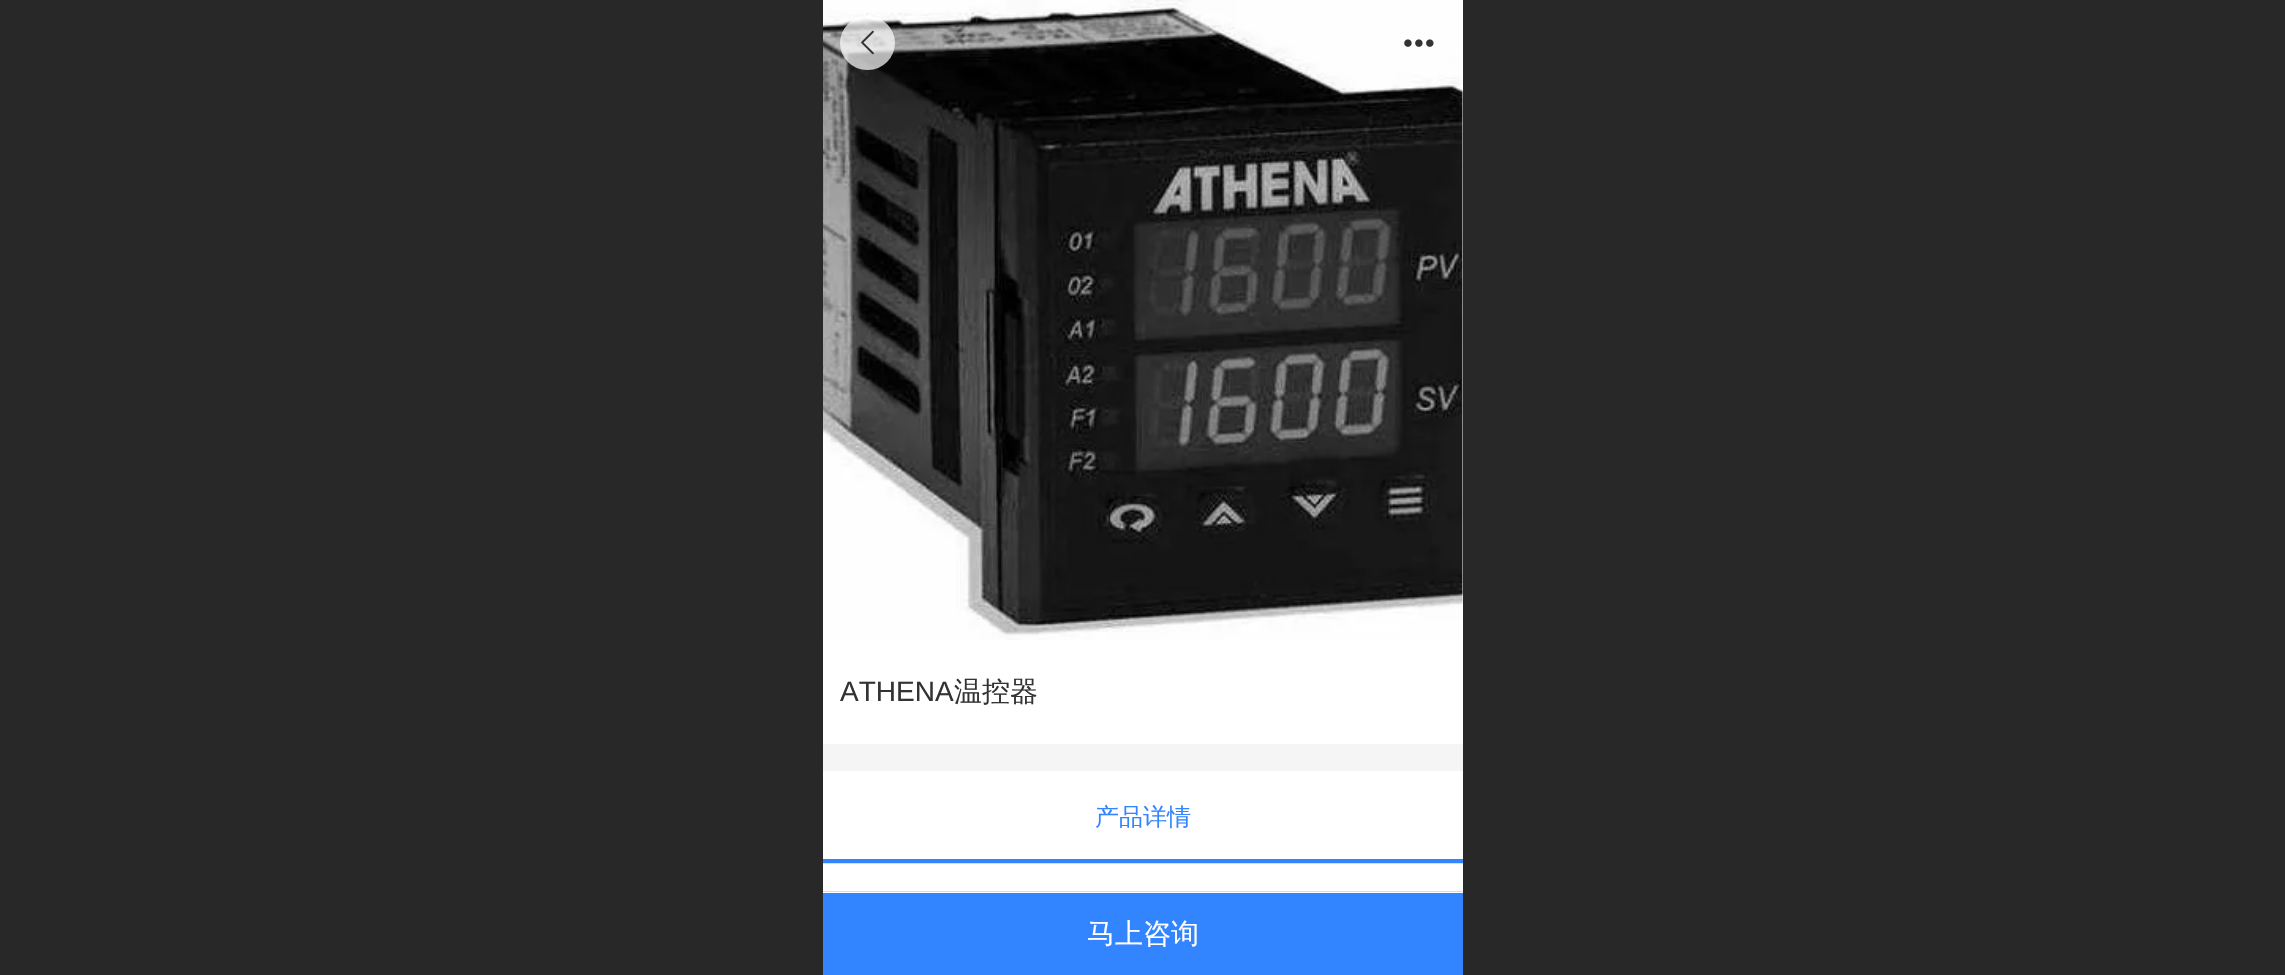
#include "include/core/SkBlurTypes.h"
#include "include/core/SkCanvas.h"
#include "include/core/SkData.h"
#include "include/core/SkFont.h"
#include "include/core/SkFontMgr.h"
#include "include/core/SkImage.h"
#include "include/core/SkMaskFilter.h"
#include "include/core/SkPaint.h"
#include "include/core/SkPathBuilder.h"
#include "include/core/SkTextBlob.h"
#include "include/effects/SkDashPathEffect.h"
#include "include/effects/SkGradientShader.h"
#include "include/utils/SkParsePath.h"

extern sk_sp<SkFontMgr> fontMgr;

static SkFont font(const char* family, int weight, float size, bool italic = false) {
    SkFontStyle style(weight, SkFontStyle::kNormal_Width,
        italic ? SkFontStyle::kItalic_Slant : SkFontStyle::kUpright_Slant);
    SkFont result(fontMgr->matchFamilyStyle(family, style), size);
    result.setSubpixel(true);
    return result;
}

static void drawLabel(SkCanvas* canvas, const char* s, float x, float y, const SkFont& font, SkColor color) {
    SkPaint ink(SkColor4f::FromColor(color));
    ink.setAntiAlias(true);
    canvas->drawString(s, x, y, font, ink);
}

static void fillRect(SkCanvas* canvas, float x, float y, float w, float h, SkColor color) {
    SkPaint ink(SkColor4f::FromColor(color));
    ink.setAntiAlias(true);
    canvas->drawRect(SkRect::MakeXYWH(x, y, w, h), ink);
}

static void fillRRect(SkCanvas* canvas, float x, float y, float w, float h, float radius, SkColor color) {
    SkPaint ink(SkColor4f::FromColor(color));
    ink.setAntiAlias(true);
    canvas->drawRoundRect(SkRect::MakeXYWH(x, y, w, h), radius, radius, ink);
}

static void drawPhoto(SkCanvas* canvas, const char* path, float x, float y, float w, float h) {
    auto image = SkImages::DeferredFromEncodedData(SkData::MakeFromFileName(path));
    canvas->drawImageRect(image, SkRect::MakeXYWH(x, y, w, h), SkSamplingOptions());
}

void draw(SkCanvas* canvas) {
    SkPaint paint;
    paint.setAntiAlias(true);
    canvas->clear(0xFFFFFFFF);
    fillRect(canvas, 0, 0, 823, 975, 0xFF282828);
    drawPhoto(canvas, "assets/img3.png", 823, 0, 640, 640);
    fillRRect(canvas, 840, 16, 55, 54, 27, 0xB3FFFFFF);
    drawPhoto(canvas, "assets/img1.png", 861, 30, 13, 25);
    drawPhoto(canvas, "assets/img2.png", 1404, 39, 30, 8);
    SkFont font1 = font("Liberation Sans", 400, 28);
    drawLabel(canvas, "ATHENA", 840, 701, font1, 0xFF333333);
    SkFont font2 = font("WenQuanYi Zen Hei", 500, 28);
    drawLabel(canvas, "温控器", 954, 701, font2, 0xFF333333);
    fillRect(canvas, 823, 744, 640, 27, 0xFFF5F5F5);
    fillRect(canvas, 823, 863, 640, 1, 0xFFDDDDDD);
    fillRect(canvas, 823, 859, 640, 4, 0xFF3285FF);
    SkFont font3 = font("WenQuanYi Zen Hei", 500, 24);
    drawLabel(canvas, "产品详情", 1095, 825, font3, 0xFF3285FF);
    fillRect(canvas, 823, 891, 640, 1, 0xFFDDDDDD);
    fillRect(canvas, 823, 893, 640, 82, 0xFF3285FF);
    drawLabel(canvas, "马上咨询", 1087, 943, font2, 0xFFFFFFFF);
    fillRect(canvas, 1463, 0, 822, 975, 0xFF282828);
}
